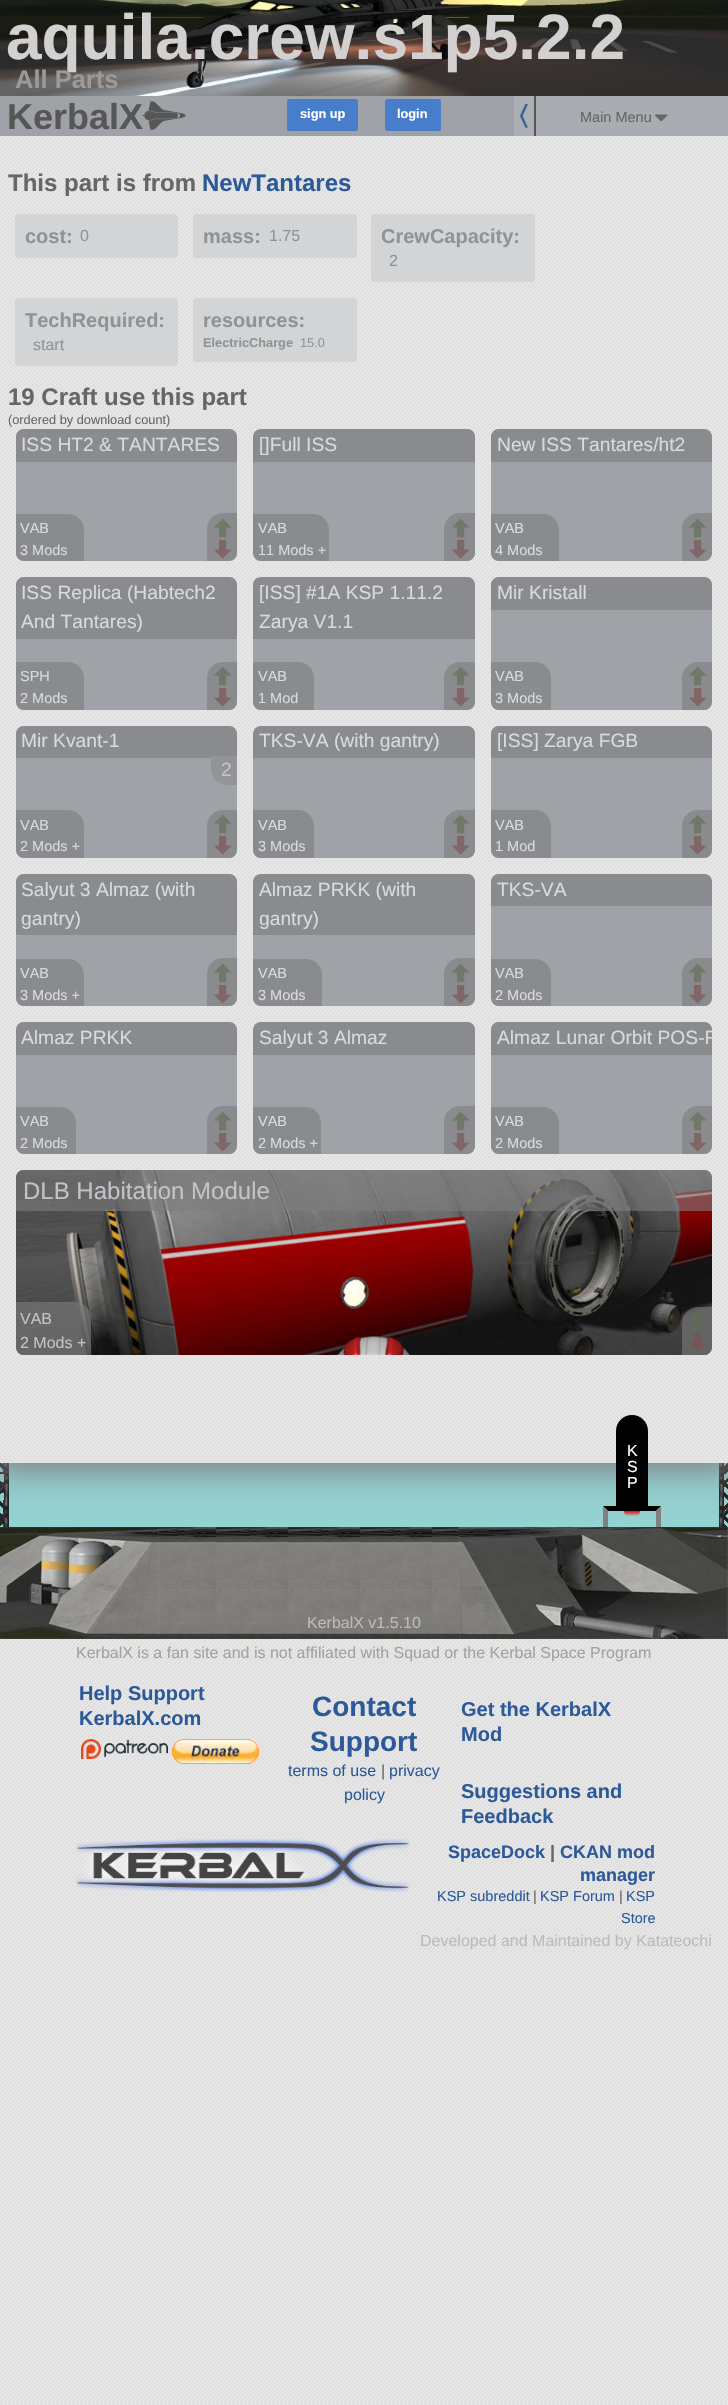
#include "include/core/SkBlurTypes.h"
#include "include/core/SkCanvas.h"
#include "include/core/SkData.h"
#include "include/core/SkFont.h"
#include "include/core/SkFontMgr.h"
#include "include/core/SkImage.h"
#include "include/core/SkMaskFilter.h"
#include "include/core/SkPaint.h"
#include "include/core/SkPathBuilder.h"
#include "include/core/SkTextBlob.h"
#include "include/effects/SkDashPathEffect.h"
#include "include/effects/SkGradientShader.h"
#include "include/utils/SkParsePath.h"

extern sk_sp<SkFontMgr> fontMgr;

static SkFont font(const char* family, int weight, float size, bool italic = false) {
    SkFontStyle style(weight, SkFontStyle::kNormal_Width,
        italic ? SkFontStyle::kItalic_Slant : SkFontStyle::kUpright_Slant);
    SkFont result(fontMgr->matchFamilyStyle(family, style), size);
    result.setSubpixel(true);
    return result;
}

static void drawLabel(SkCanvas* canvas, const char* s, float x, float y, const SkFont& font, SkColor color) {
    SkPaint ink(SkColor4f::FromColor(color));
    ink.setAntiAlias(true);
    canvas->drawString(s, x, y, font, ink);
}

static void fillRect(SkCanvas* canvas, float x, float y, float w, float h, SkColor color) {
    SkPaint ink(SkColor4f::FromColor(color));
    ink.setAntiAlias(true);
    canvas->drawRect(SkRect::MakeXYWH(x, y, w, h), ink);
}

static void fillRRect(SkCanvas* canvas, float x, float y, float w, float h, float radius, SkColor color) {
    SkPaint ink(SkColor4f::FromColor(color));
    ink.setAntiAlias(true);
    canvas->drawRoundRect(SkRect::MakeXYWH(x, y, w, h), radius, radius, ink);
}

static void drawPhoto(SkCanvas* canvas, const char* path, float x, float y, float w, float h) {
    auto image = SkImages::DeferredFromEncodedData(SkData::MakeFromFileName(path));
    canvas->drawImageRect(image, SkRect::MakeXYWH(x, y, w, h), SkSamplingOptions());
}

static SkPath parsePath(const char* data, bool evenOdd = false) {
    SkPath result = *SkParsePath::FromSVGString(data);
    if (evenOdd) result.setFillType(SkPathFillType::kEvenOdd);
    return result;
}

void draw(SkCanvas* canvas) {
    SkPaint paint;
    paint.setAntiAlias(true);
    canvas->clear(0xFFFFFFFF);
    drawPhoto(canvas, "assets/img1.png", 0, 1639, 728, 766);
    {
        const SkColor colors[] = {0xFF0F1932, 0xFF95D3D2};
        const float stops[] = {0, 1};
        const SkPoint ends[] = {{364, 0}, {364, 1527}};
        paint.setShader(SkGradientShader::MakeLinear(ends, colors, stops, 2, SkTileMode::kClamp));
        paint.setAlpha(255);
    }
    canvas->drawRect(SkRect::MakeXYWH(0, 1463, 728, 64), paint);
    drawPhoto(canvas, "assets/img12.png", 0, 1463, 9, 64);
    drawPhoto(canvas, "assets/img13.png", 719, 1463, 9, 64);
    paint.setShader(nullptr);
    paint.setColor(0xFF808080);
    paint.setMaskFilter(SkMaskFilter::MakeBlur(kNormal_SkBlurStyle, 15));
    canvas->drawRect(SkRect::MakeXYWH(-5, -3, 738, 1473), paint);
    paint.setMaskFilter(nullptr);
    drawPhoto(canvas, "assets/img2.png", 0, 136, 728, 1327);
    drawPhoto(canvas, "assets/img3.png", 0, 0, 728, 96);
    SkFont font1 = font("Liberation Sans", 700, 64);
    drawLabel(canvas, "aquila.crew.s1p5.2.2", 6, 59, font1, 0xFFD2D1D0);
    SkFont font2 = font("Liberation Sans", 700, 25.5f);
    drawLabel(canvas, "All Parts", 15, 88, font2, 0xFF9C9A99);
    fillRect(canvas, 0, 96, 514, 40, 0xFF9FA2A7);
    SkFont font3 = font("Liberation Sans", 700, 36);
    drawLabel(canvas, "KerbalX", 7, 129, font3, 0xFF565657);
    drawPhoto(canvas, "assets/img4.png", 142, 101, 44, 29);
    fillRRect(canvas, 287, 99, 71, 32, 2.5f, 0xFF477DCA);
    SkFont font4 = font("Liberation Sans", 700, 12.75f);
    drawLabel(canvas, "sign up", 300, 118, font4, 0xFFFFFFFF);
    fillRRect(canvas, 385, 99, 56, 32, 2.5f, 0xFF477DCA);
    drawLabel(canvas, "login", 397, 118, font4, 0xFFFFFFFF);
    fillRect(canvas, 514, 96, 20, 40, 0xFFACAFB3);
    fillRect(canvas, 534, 96, 2, 40, 0xFF565657);
    drawPhoto(canvas, "assets/img5.png", 520, 104, 8, 24);
    fillRect(canvas, 536, 96, 192, 40, 0xFFA9ACB1);
    SkFont font5 = font("Liberation Sans", 400, 14.5f);
    drawLabel(canvas, "Main Menu", 580, 122, font5, 0xFF666666);
    drawPhoto(canvas, "assets/img6.png", 655, 114, 13, 8);
    SkFont font6 = font("Liberation Sans", 700, 24);
    drawLabel(canvas, "This part is from", 8, 191, font6, 0xFF666666);
    drawLabel(canvas, "NewTantares", 202, 191, font6, 0xFF2C5999);
    fillRRect(canvas, 15, 214, 163, 44, 4, 0x99C7C9CC);
    SkFont font7 = font("Liberation Sans", 700, 20);
    drawLabel(canvas, "cost:", 25, 243, font7, 0xFF919293);
    SkFont font8 = font("Liberation Sans", 400, 16);
    drawLabel(canvas, "0", 80, 241, font8, 0xFF919293);
    fillRRect(canvas, 193, 214, 164, 44, 4, 0x99C7C9CC);
    drawLabel(canvas, "mass:", 203, 243, font7, 0xFF919293);
    drawLabel(canvas, "1.75", 269, 241, font8, 0xFF919293);
    fillRRect(canvas, 371, 214, 164, 68, 4, 0x99C7C9CC);
    drawLabel(canvas, "CrewCapacity:", 381, 243, font7, 0xFF919293);
    drawLabel(canvas, "2", 389, 266, font8, 0xFF919293);
    fillRRect(canvas, 15, 298, 163, 68, 4, 0x99C7C9CC);
    drawLabel(canvas, "TechRequired:", 25, 327, font7, 0xFF919293);
    drawLabel(canvas, "start", 33, 350, font8, 0xFF919293);
    fillRRect(canvas, 193, 298, 164, 64, 4, 0x99C7C9CC);
    drawLabel(canvas, "resources:", 203, 327, font7, 0xFF919293);
    drawLabel(canvas, "ElectricCharge", 203, 347, font4, 0xFF919293);
    SkFont font9 = font("Liberation Sans", 400, 12.75f);
    drawLabel(canvas, "15.0", 300, 347, font9, 0xFF919293);
    drawLabel(canvas, "19 Craft use this part", 8, 405, font6, 0xFF666666);
    drawLabel(canvas, "(ordered by download count)", 8, 424, font9, 0xFF666666);
    fillRRect(canvas, 16, 429, 221, 132, 8, 0xFF9FA2A7);
    paint.setColor(0x997C7C7D);
    canvas->drawPath(parsePath("M24 429H229C233.5 429 237 432.5 237 437V462H16V437C16 432.5 19.5 429 24 429Z"), paint);
    SkFont font10 = font("Liberation Sans", 400, 19.25f);
    drawLabel(canvas, "ISS HT2 & TANTARES", 21, 451, font10, 0xFFD9DADC);
    canvas->drawPath(parsePath("M16 514H68C77 514 84 521 84 530V561H24C19.5 561 16 557.5 16 553Z"), paint);
    drawLabel(canvas, "VAB", 20, 533, font5, 0xFFD9DADC);
    drawLabel(canvas, "3 Mods", 20, 555, font5, 0xFFD9DADC);
    canvas->drawPath(parsePath("M223 513H237V553C237 557.5 233.5 561 229 561H207V529C207 520 214 513 223 513Z"), paint);
    drawPhoto(canvas, "assets/img7.png", 214, 518, 18, 20);
    drawPhoto(canvas, "assets/img8.png", 214, 540, 18, 19);
    fillRRect(canvas, 253, 429, 222, 132, 8, 0xFF9FA2A7);
    canvas->save();
    canvas->clipPath(parsePath("M261 429H467C471.5 429 475 432.5 475 437V553C475 557.5 471.5 561 467 561H261C256.5 561 253 557.5 253 553V437C253 432.5 256.5 429 261 429Z"), true);
    canvas->drawPath(parsePath("M261 429H474C478.5 429 482 432.5 482 437V462H253V437C253 432.5 256.5 429 261 429Z"), paint);
    canvas->restore();
    drawLabel(canvas, "[]Full ISS", 259, 451, font10, 0xFFD9DADC);
    canvas->drawPath(parsePath("M253 514H313C322 514 329 521 329 530V561H261C256.5 561 253 557.5 253 553Z"), paint);
    drawLabel(canvas, "VAB", 258, 533, font5, 0xFFD9DADC);
    drawLabel(canvas, "11 Mods +", 258, 555, font5, 0xFFD9DADC);
    canvas->drawPath(parsePath("M460 513H475V553C475 557.5 471.5 561 467 561H444V529C444 520 451 513 460 513Z"), paint);
    drawPhoto(canvas, "assets/img7.png", 452, 518, 18, 20);
    drawPhoto(canvas, "assets/img8.png", 452, 540, 18, 19);
    fillRRect(canvas, 491, 429, 221, 132, 8, 0xFF9FA2A7);
    canvas->drawPath(parsePath("M499 429H704C708.5 429 712 432.5 712 437V462H491V437C491 432.5 494.5 429 499 429Z"), paint);
    drawLabel(canvas, "New ISS Tantares/ht2", 497, 451, font10, 0xFFD9DADC);
    canvas->drawPath(parsePath("M491 514H543C552 514 559 521 559 530V561H499C494.5 561 491 557.5 491 553Z"), paint);
    drawLabel(canvas, "VAB", 495, 533, font5, 0xFFD9DADC);
    drawLabel(canvas, "4 Mods", 495, 555, font5, 0xFFD9DADC);
    canvas->drawPath(parsePath("M698 513H712V553C712 557.5 708.5 561 704 561H682V529C682 520 689 513 698 513Z"), paint);
    drawPhoto(canvas, "assets/img7.png", 689, 518, 18, 20);
    drawPhoto(canvas, "assets/img8.png", 689, 540, 18, 19);
    fillRRect(canvas, 16, 577, 221, 133, 8, 0xFF9FA2A7);
    canvas->drawPath(parsePath("M24 577H229C233.5 577 237 580.5 237 585V639H16V585C16 580.5 19.5 577 24 577Z"), paint);
    drawLabel(canvas, "ISS Replica (Habtech2", 21, 599, font10, 0xFFD9DADC);
    drawLabel(canvas, "And Tantares)", 21, 628, font10, 0xFFD9DADC);
    canvas->drawPath(parsePath("M16 662H68C77 662 84 669 84 678V710H24C19.5 710 16 706.5 16 702Z"), paint);
    drawLabel(canvas, "SPH", 20, 681, font5, 0xFFD9DADC);
    drawLabel(canvas, "2 Mods", 20, 703, font5, 0xFFD9DADC);
    canvas->drawPath(parsePath("M223 662H237V702C237 706.5 233.5 710 229 710H207V678C207 669 214 662 223 662Z"), paint);
    drawPhoto(canvas, "assets/img7.png", 214, 666, 18, 20);
    drawPhoto(canvas, "assets/img8.png", 214, 688, 18, 19);
    fillRRect(canvas, 253, 577, 222, 133, 8, 0xFF9FA2A7);
    canvas->save();
    canvas->clipPath(parsePath("M261 577H467C471.5 577 475 580.5 475 585V702C475 706.5 471.5 710 467 710H261C256.5 710 253 706.5 253 702V585C253 580.5 256.5 577 261 577Z"), true);
    canvas->drawPath(parsePath("M261 577H474C478.5 577 482 580.5 482 585V639H253V585C253 580.5 256.5 577 261 577Z"), paint);
    canvas->restore();
    drawLabel(canvas, "[ISS] #1A KSP 1.11.2", 259, 599, font10, 0xFFD9DADC);
    drawLabel(canvas, "Zarya V1.1", 259, 628, font10, 0xFFD9DADC);
    canvas->drawPath(parsePath("M253 662H298C307 662 314 669 314 678V710H261C256.5 710 253 706.5 253 702Z"), paint);
    drawLabel(canvas, "VAB", 258, 681, font5, 0xFFD9DADC);
    drawLabel(canvas, "1 Mod", 258, 703, font5, 0xFFD9DADC);
    canvas->drawPath(parsePath("M460 662H475V702C475 706.5 471.5 710 467 710H444V678C444 669 451 662 460 662Z"), paint);
    drawPhoto(canvas, "assets/img7.png", 452, 666, 18, 20);
    drawPhoto(canvas, "assets/img8.png", 452, 688, 18, 19);
    fillRRect(canvas, 491, 577, 221, 133, 8, 0xFF9FA2A7);
    canvas->drawPath(parsePath("M499 577H704C708.5 577 712 580.5 712 585V610H491V585C491 580.5 494.5 577 499 577Z"), paint);
    drawLabel(canvas, "Mir Kristall", 497, 599, font10, 0xFFD9DADC);
    canvas->drawPath(parsePath("M491 662H535C544 662 551 669 551 678V710H499C494.5 710 491 706.5 491 702Z"), paint);
    drawLabel(canvas, "VAB", 495, 681, font5, 0xFFD9DADC);
    drawLabel(canvas, "3 Mods", 495, 703, font5, 0xFFD9DADC);
    canvas->drawPath(parsePath("M698 662H712V702C712 706.5 708.5 710 704 710H682V678C682 669 689 662 698 662Z"), paint);
    drawPhoto(canvas, "assets/img7.png", 689, 666, 18, 20);
    drawPhoto(canvas, "assets/img8.png", 689, 688, 18, 19);
    fillRRect(canvas, 16, 726, 221, 132, 8, 0xFF9FA2A7);
    canvas->drawPath(parsePath("M24 726H229C233.5 726 237 729.5 237 734V758H16V734C16 729.5 19.5 726 24 726Z"), paint);
    drawLabel(canvas, "Mir Kvant-1", 21, 747, font10, 0xFFD9DADC);
    paint.setColor(0xFF929498);
    canvas->drawPath(parsePath("M211 756H237V785H227C218 785 211 778 211 769Z"), paint);
    drawLabel(canvas, "2", 221, 776, font10, 0xFFC2C3C7);
    paint.setColor(0x997C7C7D);
    canvas->drawPath(parsePath("M16 810H68C77 810 84 817 84 826V858H24C19.5 858 16 854.5 16 850Z"), paint);
    drawLabel(canvas, "VAB", 20, 830, font5, 0xFFD9DADC);
    drawLabel(canvas, "2 Mods +", 20, 851, font5, 0xFFD9DADC);
    canvas->drawPath(parsePath("M223 810H237V850C237 854.5 233.5 858 229 858H207V826C207 817 214 810 223 810Z"), paint);
    drawPhoto(canvas, "assets/img7.png", 214, 814, 18, 20);
    drawPhoto(canvas, "assets/img8.png", 214, 836, 18, 19);
    fillRRect(canvas, 253, 726, 222, 132, 8, 0xFF9FA2A7);
    canvas->save();
    canvas->clipPath(parsePath("M261 726H467C471.5 726 475 729.5 475 734V850C475 854.5 471.5 858 467 858H261C256.5 858 253 854.5 253 850V734C253 729.5 256.5 726 261 726Z"), true);
    canvas->drawPath(parsePath("M261 726H474C478.5 726 482 729.5 482 734V758H253V734C253 729.5 256.5 726 261 726Z"), paint);
    canvas->restore();
    drawLabel(canvas, "TKS-VA (with gantry)", 259, 747, font10, 0xFFD9DADC);
    canvas->drawPath(parsePath("M253 810H298C307 810 314 817 314 826V858H261C256.5 858 253 854.5 253 850Z"), paint);
    drawLabel(canvas, "VAB", 258, 830, font5, 0xFFD9DADC);
    drawLabel(canvas, "3 Mods", 258, 851, font5, 0xFFD9DADC);
    canvas->drawPath(parsePath("M460 810H475V850C475 854.5 471.5 858 467 858H444V826C444 817 451 810 460 810Z"), paint);
    drawPhoto(canvas, "assets/img7.png", 452, 814, 18, 20);
    drawPhoto(canvas, "assets/img8.png", 452, 836, 18, 19);
    fillRRect(canvas, 491, 726, 221, 132, 8, 0xFF9FA2A7);
    canvas->drawPath(parsePath("M499 726H704C708.5 726 712 729.5 712 734V758H491V734C491 729.5 494.5 726 499 726Z"), paint);
    drawLabel(canvas, "[ISS] Zarya FGB", 497, 747, font10, 0xFFD9DADC);
    canvas->drawPath(parsePath("M491 810H535C544 810 551 817 551 826V858H499C494.5 858 491 854.5 491 850Z"), paint);
    drawLabel(canvas, "VAB", 495, 830, font5, 0xFFD9DADC);
    drawLabel(canvas, "1 Mod", 495, 851, font5, 0xFFD9DADC);
    canvas->drawPath(parsePath("M698 810H712V850C712 854.5 708.5 858 704 858H682V826C682 817 689 810 698 810Z"), paint);
    drawPhoto(canvas, "assets/img7.png", 689, 814, 18, 20);
    drawPhoto(canvas, "assets/img8.png", 689, 836, 18, 19);
    fillRRect(canvas, 16, 874, 221, 132, 8, 0xFF9FA2A7);
    canvas->drawPath(parsePath("M24 874H229C233.5 874 237 877.5 237 882V935H16V882C16 877.5 19.5 874 24 874Z"), paint);
    drawLabel(canvas, "Salyut 3 Almaz (with", 21, 896, font10, 0xFFD9DADC);
    drawLabel(canvas, "gantry)", 21, 925, font10, 0xFFD9DADC);
    canvas->drawPath(parsePath("M16 959H68C77 959 84 966 84 975V1006H24C19.5 1006 16 1002.5 16 998Z"), paint);
    drawLabel(canvas, "VAB", 20, 978, font5, 0xFFD9DADC);
    drawLabel(canvas, "3 Mods +", 20, 1000, font5, 0xFFD9DADC);
    canvas->drawPath(parsePath("M223 958H237V998C237 1002.5 233.5 1006 229 1006H207V974C207 965 214 958 223 958Z"), paint);
    drawPhoto(canvas, "assets/img7.png", 214, 963, 18, 20);
    drawPhoto(canvas, "assets/img8.png", 214, 985, 18, 19);
    fillRRect(canvas, 253, 874, 222, 132, 8, 0xFF9FA2A7);
    canvas->save();
    canvas->clipPath(parsePath("M261 874H467C471.5 874 475 877.5 475 882V998C475 1002.5 471.5 1006 467 1006H261C256.5 1006 253 1002.5 253 998V882C253 877.5 256.5 874 261 874Z"), true);
    canvas->drawPath(parsePath("M261 874H474C478.5 874 482 877.5 482 882V935H253V882C253 877.5 256.5 874 261 874Z"), paint);
    canvas->restore();
    drawLabel(canvas, "Almaz PRKK (with", 259, 896, font10, 0xFFD9DADC);
    drawLabel(canvas, "gantry)", 259, 925, font10, 0xFFD9DADC);
    canvas->drawPath(parsePath("M253 959H306C315 959 322 966 322 975V1006H261C256.5 1006 253 1002.5 253 998Z"), paint);
    drawLabel(canvas, "VAB", 258, 978, font5, 0xFFD9DADC);
    drawLabel(canvas, "3 Mods", 258, 1000, font5, 0xFFD9DADC);
    canvas->drawPath(parsePath("M460 958H475V998C475 1002.5 471.5 1006 467 1006H444V974C444 965 451 958 460 958Z"), paint);
    drawPhoto(canvas, "assets/img7.png", 452, 963, 18, 20);
    drawPhoto(canvas, "assets/img8.png", 452, 985, 18, 19);
    fillRRect(canvas, 491, 874, 221, 132, 8, 0xFF9FA2A7);
    canvas->drawPath(parsePath("M499 874H704C708.5 874 712 877.5 712 882V906H491V882C491 877.5 494.5 874 499 874Z"), paint);
    drawLabel(canvas, "TKS-VA", 497, 896, font10, 0xFFD9DADC);
    canvas->drawPath(parsePath("M491 959H535C544 959 551 966 551 975V1006H499C494.5 1006 491 1002.5 491 998Z"), paint);
    drawLabel(canvas, "VAB", 495, 978, font5, 0xFFD9DADC);
    drawLabel(canvas, "2 Mods", 495, 1000, font5, 0xFFD9DADC);
    canvas->drawPath(parsePath("M698 958H712V998C712 1002.5 708.5 1006 704 1006H682V974C682 965 689 958 698 958Z"), paint);
    drawPhoto(canvas, "assets/img7.png", 689, 963, 18, 20);
    drawPhoto(canvas, "assets/img8.png", 689, 985, 18, 19);
    fillRRect(canvas, 16, 1022, 221, 132, 8, 0xFF9FA2A7);
    canvas->drawPath(parsePath("M24 1022H229C233.5 1022 237 1025.5 237 1030V1055H16V1030C16 1025.5 19.5 1022 24 1022Z"), paint);
    drawLabel(canvas, "Almaz PRKK", 21, 1044, font10, 0xFFD9DADC);
    canvas->drawPath(parsePath("M16 1107H60C69 1107 76 1114 76 1123V1154H24C19.5 1154 16 1150.5 16 1146Z"), paint);
    drawLabel(canvas, "VAB", 20, 1126, font5, 0xFFD9DADC);
    drawLabel(canvas, "2 Mods", 20, 1148, font5, 0xFFD9DADC);
    canvas->drawPath(parsePath("M223 1106H237V1146C237 1150.5 233.5 1154 229 1154H207V1122C207 1113 214 1106 223 1106Z"), paint);
    drawPhoto(canvas, "assets/img7.png", 214, 1111, 18, 20);
    drawPhoto(canvas, "assets/img8.png", 214, 1133, 18, 19);
    fillRRect(canvas, 253, 1022, 222, 132, 8, 0xFF9FA2A7);
    canvas->save();
    canvas->clipPath(parsePath("M261 1022H467C471.5 1022 475 1025.5 475 1030V1146C475 1150.5 471.5 1154 467 1154H261C256.5 1154 253 1150.5 253 1146V1030C253 1025.5 256.5 1022 261 1022Z"), true);
    canvas->drawPath(parsePath("M261 1022H474C478.5 1022 482 1025.5 482 1030V1055H253V1030C253 1025.5 256.5 1022 261 1022Z"), paint);
    canvas->restore();
    drawLabel(canvas, "Salyut 3 Almaz", 259, 1044, font10, 0xFFD9DADC);
    canvas->drawPath(parsePath("M253 1107H305C314 1107 321 1114 321 1123V1154H261C256.5 1154 253 1150.5 253 1146Z"), paint);
    drawLabel(canvas, "VAB", 258, 1126, font5, 0xFFD9DADC);
    drawLabel(canvas, "2 Mods +", 258, 1148, font5, 0xFFD9DADC);
    canvas->drawPath(parsePath("M460 1106H475V1146C475 1150.5 471.5 1154 467 1154H444V1122C444 1113 451 1106 460 1106Z"), paint);
    drawPhoto(canvas, "assets/img7.png", 452, 1111, 18, 20);
    drawPhoto(canvas, "assets/img8.png", 452, 1133, 18, 19);
    fillRRect(canvas, 491, 1022, 221, 132, 8, 0xFF9FA2A7);
    canvas->drawPath(parsePath("M499 1022H704C708.5 1022 712 1025.5 712 1030V1055H491V1030C491 1025.5 494.5 1022 499 1022Z"), paint);
    canvas->save();
    canvas->clipPath(parsePath("M499 1022H704C708.5 1022 712 1025.5 712 1030V1146C712 1150.5 708.5 1154 704 1154H499C494.5 1154 491 1150.5 491 1146V1030C491 1025.5 494.5 1022 499 1022Z"), true);
    drawLabel(canvas, "Almaz Lunar Orbit POS-R", 497, 1044, font10, 0xFFD9DADC);
    canvas->restore();
    canvas->drawPath(parsePath("M491 1107H543C552 1107 559 1114 559 1123V1154H499C494.5 1154 491 1150.5 491 1146Z"), paint);
    drawLabel(canvas, "VAB", 495, 1126, font5, 0xFFD9DADC);
    drawLabel(canvas, "2 Mods", 495, 1148, font5, 0xFFD9DADC);
    canvas->drawPath(parsePath("M698 1106H712V1146C712 1150.5 708.5 1154 704 1154H682V1122C682 1113 689 1106 698 1106Z"), paint);
    drawPhoto(canvas, "assets/img7.png", 689, 1111, 18, 20);
    drawPhoto(canvas, "assets/img8.png", 689, 1133, 18, 19);
    fillRRect(canvas, 16, 1170, 696, 185, 8, 0xFF9FA2A7);
    drawPhoto(canvas, "assets/img9.png", 16, 1170, 696, 185);
    canvas->drawPath(parsePath("M24 1170H704C708.5 1170 712 1173.5 712 1178V1211H16V1178C16 1173.5 19.5 1170 24 1170Z"), paint);
    SkFont font11 = font("Liberation Sans", 400, 24);
    drawLabel(canvas, "DLB Habitation Module", 23, 1199, font11, 0xFFC2C3C7);
    canvas->drawPath(parsePath("M16 1302H75C84 1302 91 1309 91 1318V1355H24C19.5 1355 16 1351.5 16 1347Z"), paint);
    drawLabel(canvas, "VAB", 20, 1324, font8, 0xFFC2C3C7);
    drawLabel(canvas, "2 Mods +", 20, 1348, font8, 0xFFC2C3C7);
    canvas->drawPath(parsePath("M698 1307H712V1347C712 1351.5 708.5 1355 704 1355H682V1323C682 1314 689 1307 698 1307Z"), paint);
    drawPhoto(canvas, "assets/img10.png", 689, 1312, 17, 18);
    drawPhoto(canvas, "assets/img11.png", 689, 1333, 17, 19);
    fillRect(canvas, 616, 1447, 32, 59, 0xFF000000);
    paint.setColor(0xFF000000);
    canvas->drawPath(parsePath("M632 1415C641 1415 648 1422 648 1431V1447H616V1431C616 1422 623 1415 632 1415Z"), paint);
    drawLabel(canvas, "K", 627, 1456, font8, 0xFFFFFFFF);
    drawLabel(canvas, "S", 627, 1472, font8, 0xFFFFFFFF);
    drawLabel(canvas, "P", 627, 1488, font8, 0xFFFFFFFF);
    {
        const SkColor colors[] = {0xFFFF0000, 0xFF99C7C6};
        const float stops[] = {0, 1};
        const SkPoint ends[] = {{632, 1511}, {632, 1516}};
        paint.setShader(SkGradientShader::MakeLinear(ends, colors, stops, 2, SkTileMode::kClamp));
        paint.setAlpha(255);
    }
    canvas->drawPath(parsePath("M624 1511H640C640 1514 638 1516 635 1516H629C626 1516 624 1514 624 1511Z"), paint);
    paint.setShader(nullptr);
    paint.setColor(0xFF000000);
    canvas->drawPath(parsePath("M603 1506H661L656 1511H608Z"), paint);
    paint.setColor(0xFF808080);
    canvas->drawPath(parsePath("M661 1506V1527H656V1511ZM603 1527V1506L608 1511V1527Z"), paint);
    drawPhoto(canvas, "assets/img14.png", 159, 1527, 300, 112);
    drawPhoto(canvas, "assets/img15.png", 0, 1527, 159, 112);
    drawLabel(canvas, "KerbalX v1.5.10", 307, 1628, font8, 0xFFBCBBB9);
    drawPhoto(canvas, "assets/img16.png", 459, 1527, 269, 112);
    drawLabel(canvas, "KerbalX is a fan site and is not affiliated with Squad or the Kerbal Space Program", 76, 1658, font8, 0xFF9FA2A7);
    drawLabel(canvas, "Help Support", 79, 1700, font7, 0xFF2C5999);
    drawLabel(canvas, "KerbalX.com", 79, 1725, font7, 0xFF2C5999);
    drawPhoto(canvas, "assets/img17.png", 81, 1739, 87, 20);
    drawPhoto(canvas, "assets/img18.png", 172, 1739, 87, 25);
    SkFont font12 = font("Liberation Sans", 700, 28);
    drawLabel(canvas, "Contact", 312, 1716, font12, 0xFF2C5999);
    drawLabel(canvas, "Support", 310, 1751, font12, 0xFF2C5999);
    drawLabel(canvas, "terms of use", 288, 1776, font8, 0xFF2C5999);
    drawLabel(canvas, "|", 381, 1776, font8, 0xFF666666);
    drawLabel(canvas, "privacy", 389, 1776, font8, 0xFF2C5999);
    drawLabel(canvas, "policy", 344, 1800, font8, 0xFF2C5999);
    drawLabel(canvas, "Get the KerbalX", 461, 1716, font7, 0xFF2C5999);
    drawLabel(canvas, "Mod", 461, 1741, font7, 0xFF2C5999);
    drawLabel(canvas, "Suggestions and", 461, 1798, font7, 0xFF2C5999);
    drawLabel(canvas, "Feedback", 461, 1823, font7, 0xFF2C5999);
    drawPhoto(canvas, "assets/img19.png", 75, 1839, 335, 53);
    SkFont font13 = font("Liberation Sans", 700, 18);
    drawLabel(canvas, "SpaceDock", 448, 1858, font13, 0xFF2C5999);
    drawLabel(canvas, "|", 550, 1858, font13, 0xFF666666);
    drawLabel(canvas, "CKAN mod", 560, 1858, font13, 0xFF2C5999);
    drawLabel(canvas, "manager", 580, 1881, font13, 0xFF2C5999);
    drawLabel(canvas, "KSP subreddit", 437, 1901, font5, 0xFF2C5999);
    drawLabel(canvas, "|", 533, 1901, font5, 0xFF666666);
    drawLabel(canvas, "KSP Forum", 540, 1901, font5, 0xFF2C5999);
    drawLabel(canvas, "|", 619, 1901, font5, 0xFF666666);
    drawLabel(canvas, "KSP", 626, 1901, font5, 0xFF2C5999);
    drawLabel(canvas, "Store", 621, 1923, font5, 0xFF2C5999);
    drawLabel(canvas, "Developed and Maintained by Katateochi", 420, 1946, font8, 0xFFBCBBB9);
}
